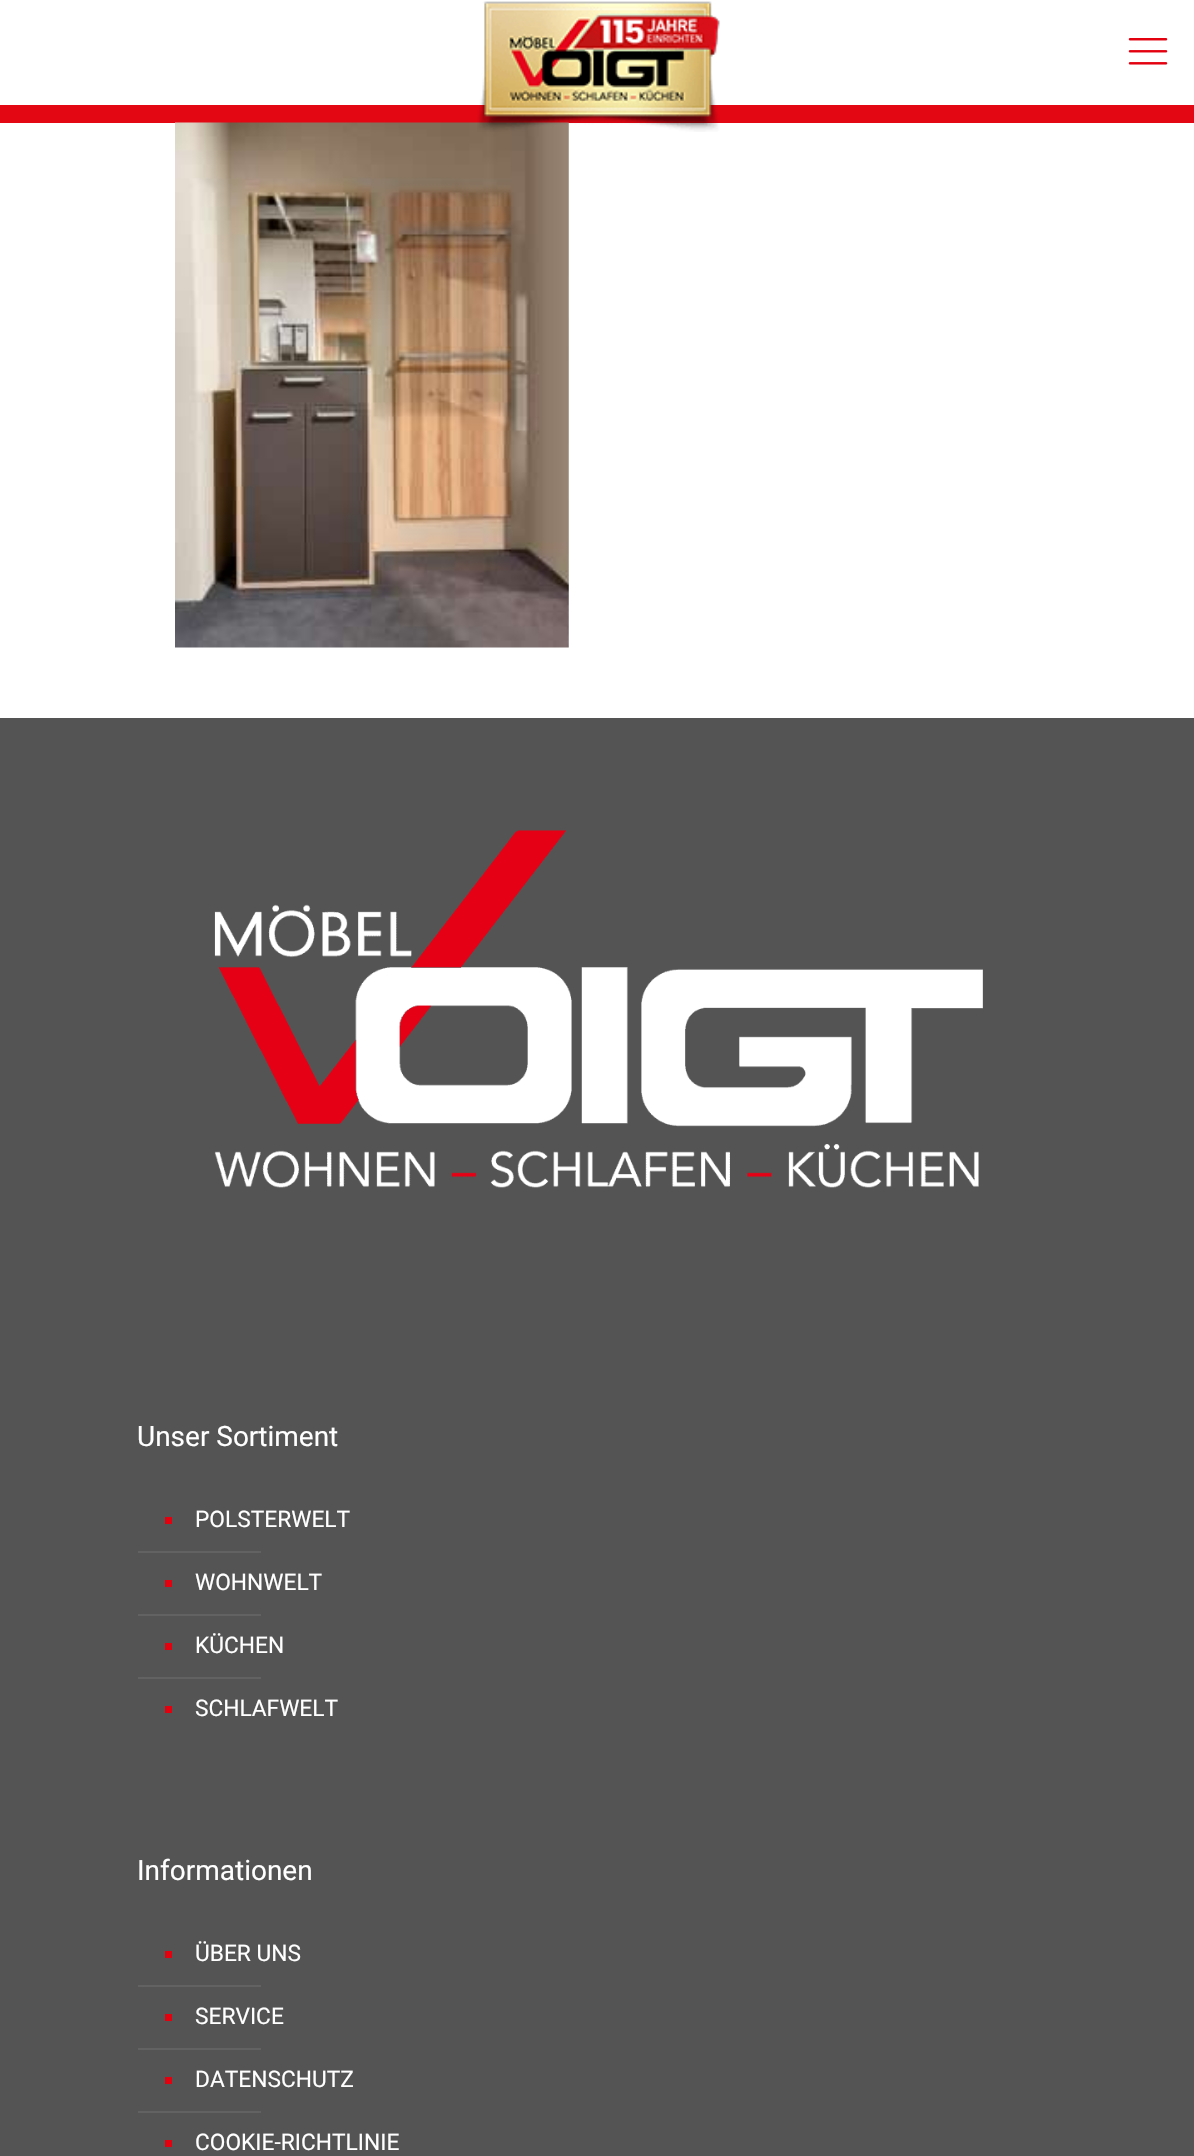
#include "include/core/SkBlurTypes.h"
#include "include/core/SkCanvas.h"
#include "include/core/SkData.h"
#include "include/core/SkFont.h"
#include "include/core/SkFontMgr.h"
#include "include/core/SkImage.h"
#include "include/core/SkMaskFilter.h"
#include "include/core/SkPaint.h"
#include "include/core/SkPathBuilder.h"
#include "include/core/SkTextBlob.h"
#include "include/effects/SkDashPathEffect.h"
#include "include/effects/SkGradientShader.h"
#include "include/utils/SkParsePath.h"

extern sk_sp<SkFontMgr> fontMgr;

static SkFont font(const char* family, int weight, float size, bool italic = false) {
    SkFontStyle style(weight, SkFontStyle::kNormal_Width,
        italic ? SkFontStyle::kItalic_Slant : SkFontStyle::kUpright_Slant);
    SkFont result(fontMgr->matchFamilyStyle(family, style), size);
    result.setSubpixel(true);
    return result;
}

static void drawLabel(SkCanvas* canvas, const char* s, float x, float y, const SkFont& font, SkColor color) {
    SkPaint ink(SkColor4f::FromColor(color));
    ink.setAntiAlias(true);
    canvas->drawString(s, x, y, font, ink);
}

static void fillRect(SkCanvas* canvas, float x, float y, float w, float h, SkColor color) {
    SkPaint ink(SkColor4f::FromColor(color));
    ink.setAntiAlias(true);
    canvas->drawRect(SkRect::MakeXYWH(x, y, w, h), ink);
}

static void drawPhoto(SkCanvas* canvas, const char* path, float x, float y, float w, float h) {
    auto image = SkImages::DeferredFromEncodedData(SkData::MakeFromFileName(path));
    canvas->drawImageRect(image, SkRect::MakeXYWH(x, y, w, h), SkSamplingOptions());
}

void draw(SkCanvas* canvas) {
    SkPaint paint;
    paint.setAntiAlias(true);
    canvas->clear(0xFFFFFFFF);
    fillRect(canvas, 0, 105, 1194, 18, 0xFFE30613);
    drawPhoto(canvas, "assets/img3.png", 175, 122, 394, 526);
    drawPhoto(canvas, "assets/img1.png", 477, 1, 243, 131);
    drawPhoto(canvas, "assets/img2.png", 1128, 38, 40, 27);
    fillRect(canvas, 0, 718, 1194, 1438, 0xFF545454);
    drawPhoto(canvas, "assets/img4.png", 214, 830, 769, 358);
    SkFont font1 = font("Roboto", 400, 28);
    drawLabel(canvas, "Unser Sortiment", 137, 1446, font1, 0xFFFFFFFF);
    fillRect(canvas, 165, 1517, 7, 7, 0xFFE3000F);
    SkFont font2 = font("Roboto", 400, 22.75f);
    drawLabel(canvas, "POLSTERWELT", 195, 1527, font2, 0xFFFFFFFF);
    fillRect(canvas, 138, 1551, 123, 2, 0xFF626262);
    fillRect(canvas, 165, 1580, 7, 7, 0xFFE3000F);
    drawLabel(canvas, "WOHNWELT", 195, 1590, font2, 0xFFFFFFFF);
    fillRect(canvas, 138, 1614, 123, 2, 0xFF626262);
    fillRect(canvas, 165, 1643, 7, 7, 0xFFE3000F);
    drawLabel(canvas, "KÜCHEN", 195, 1653, font2, 0xFFFFFFFF);
    fillRect(canvas, 138, 1677, 123, 2, 0xFF626262);
    fillRect(canvas, 165, 1706, 7, 7, 0xFFE3000F);
    drawLabel(canvas, "SCHLAFWELT", 195, 1716, font2, 0xFFFFFFFF);
    drawLabel(canvas, "Informationen", 137, 1880, font1, 0xFFFFFFFF);
    fillRect(canvas, 165, 1951, 7, 7, 0xFFE3000F);
    drawLabel(canvas, "ÜBER UNS", 195, 1961, font2, 0xFFFFFFFF);
    fillRect(canvas, 138, 1985, 123, 2, 0xFF626262);
    fillRect(canvas, 165, 2014, 7, 7, 0xFFE3000F);
    drawLabel(canvas, "SERVICE", 195, 2024, font2, 0xFFFFFFFF);
    fillRect(canvas, 138, 2048, 123, 2, 0xFF626262);
    fillRect(canvas, 165, 2077, 7, 7, 0xFFE3000F);
    drawLabel(canvas, "DATENSCHUTZ", 195, 2087, font2, 0xFFFFFFFF);
    fillRect(canvas, 138, 2111, 123, 2, 0xFF626262);
    fillRect(canvas, 165, 2140, 7, 7, 0xFFE3000F);
    drawLabel(canvas, "COOKIE-RICHTLINIE", 195, 2150, font2, 0xFFFFFFFF);
}
